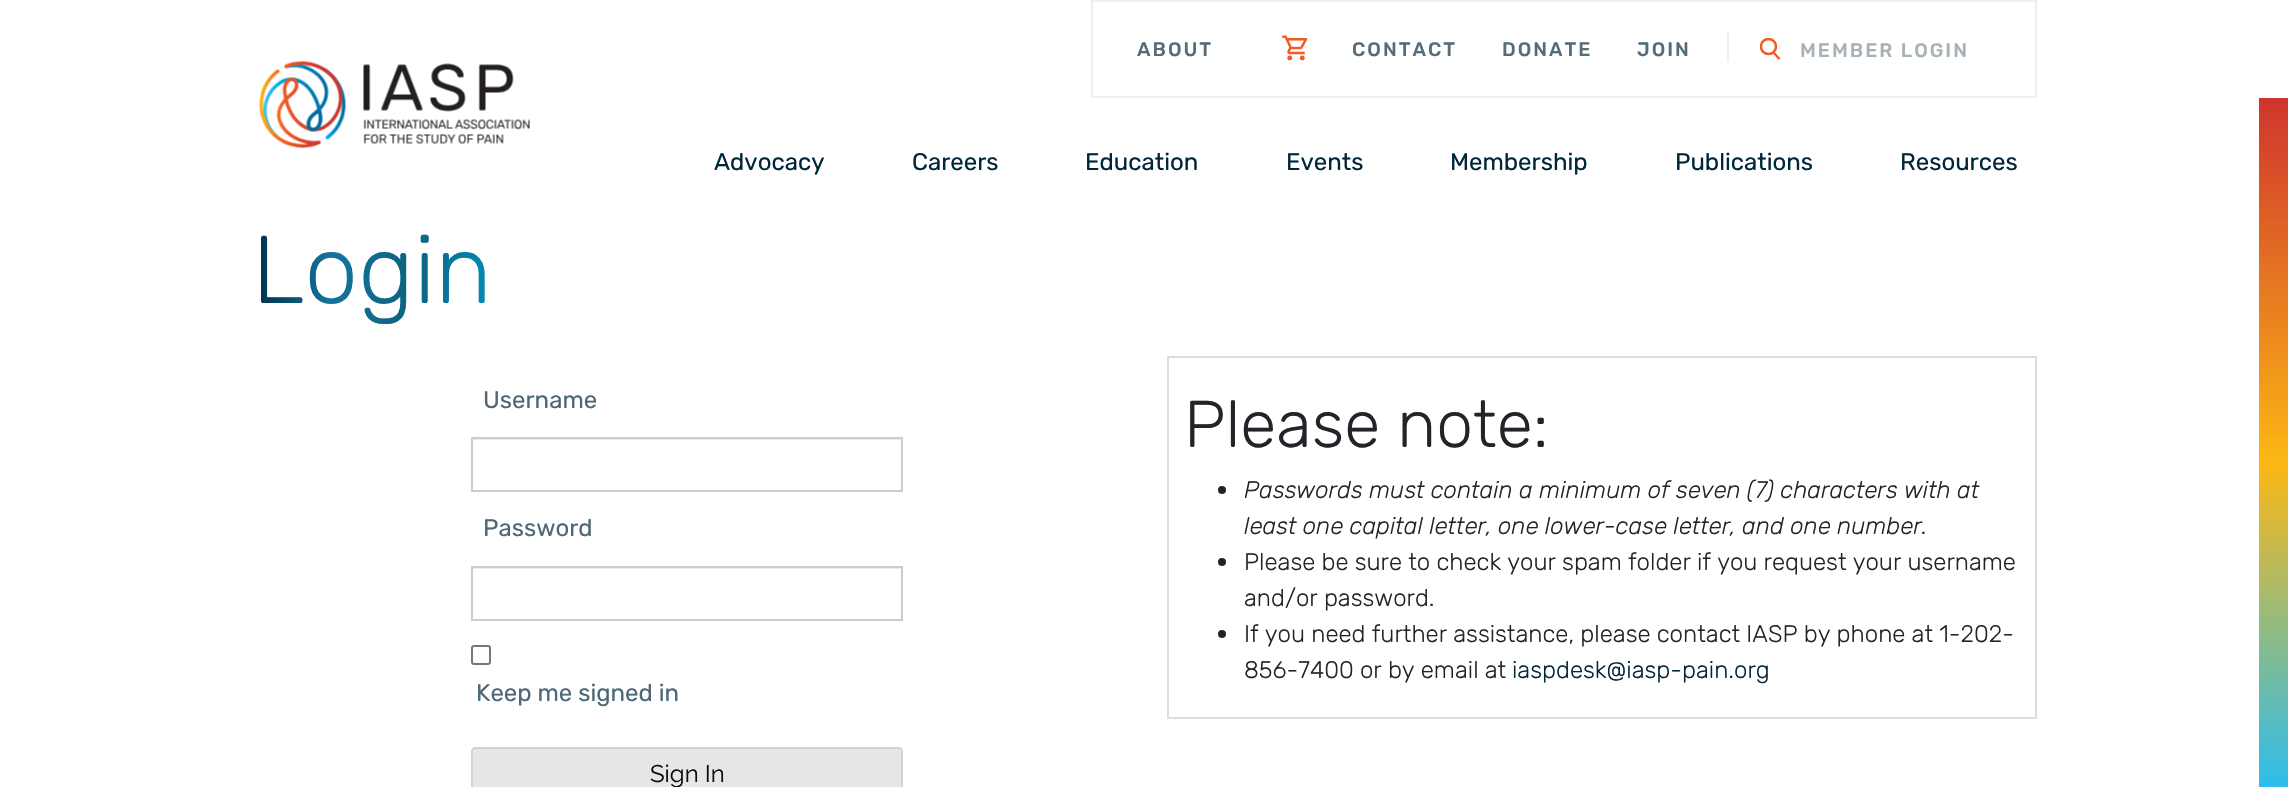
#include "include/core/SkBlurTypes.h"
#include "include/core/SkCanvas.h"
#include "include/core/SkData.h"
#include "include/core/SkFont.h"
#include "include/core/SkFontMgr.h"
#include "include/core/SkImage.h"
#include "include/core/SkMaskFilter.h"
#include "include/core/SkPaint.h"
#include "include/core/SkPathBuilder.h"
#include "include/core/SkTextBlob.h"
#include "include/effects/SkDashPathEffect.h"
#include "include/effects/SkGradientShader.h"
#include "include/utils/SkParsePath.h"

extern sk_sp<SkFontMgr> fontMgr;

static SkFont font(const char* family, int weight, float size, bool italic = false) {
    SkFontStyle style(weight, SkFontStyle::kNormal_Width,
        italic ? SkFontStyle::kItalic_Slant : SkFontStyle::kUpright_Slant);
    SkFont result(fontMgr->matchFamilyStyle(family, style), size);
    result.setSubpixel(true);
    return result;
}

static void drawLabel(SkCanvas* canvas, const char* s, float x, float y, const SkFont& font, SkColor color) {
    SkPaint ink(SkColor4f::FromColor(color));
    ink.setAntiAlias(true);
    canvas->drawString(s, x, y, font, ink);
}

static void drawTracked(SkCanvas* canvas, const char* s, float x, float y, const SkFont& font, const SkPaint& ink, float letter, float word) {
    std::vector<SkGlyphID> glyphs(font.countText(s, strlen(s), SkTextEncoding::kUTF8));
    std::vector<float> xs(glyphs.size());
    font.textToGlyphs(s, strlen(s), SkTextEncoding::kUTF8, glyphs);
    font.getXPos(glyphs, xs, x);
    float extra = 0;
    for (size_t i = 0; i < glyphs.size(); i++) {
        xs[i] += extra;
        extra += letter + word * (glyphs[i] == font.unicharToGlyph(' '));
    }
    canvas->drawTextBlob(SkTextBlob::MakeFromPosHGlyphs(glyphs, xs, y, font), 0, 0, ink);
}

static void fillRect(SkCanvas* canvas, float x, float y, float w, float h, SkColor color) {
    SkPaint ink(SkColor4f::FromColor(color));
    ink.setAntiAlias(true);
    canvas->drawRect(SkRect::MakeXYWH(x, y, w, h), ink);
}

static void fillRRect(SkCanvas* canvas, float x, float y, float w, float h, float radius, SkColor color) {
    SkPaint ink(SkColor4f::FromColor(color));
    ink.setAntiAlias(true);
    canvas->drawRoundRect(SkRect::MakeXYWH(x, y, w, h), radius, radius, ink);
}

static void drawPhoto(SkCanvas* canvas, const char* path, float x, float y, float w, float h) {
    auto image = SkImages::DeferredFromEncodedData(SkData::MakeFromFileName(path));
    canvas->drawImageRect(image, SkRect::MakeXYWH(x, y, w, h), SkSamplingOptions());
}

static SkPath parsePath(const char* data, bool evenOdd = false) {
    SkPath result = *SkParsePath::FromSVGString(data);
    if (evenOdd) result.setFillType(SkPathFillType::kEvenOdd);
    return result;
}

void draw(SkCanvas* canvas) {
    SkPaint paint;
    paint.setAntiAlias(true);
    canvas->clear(0xFFFFFFFF);
    paint.setStroke(true);
    paint.setStrokeWidth(2);
    paint.setColor(0xFFEEEEEE);
    canvas->drawRect(SkRect::MakeXYWH(1092, 1, 944, 96), paint);
    SkFont font1 = font("Rubik", 500, 19.5f);
    paint.setStroke(false);
    paint.setColor(0xFF566C78);
    drawTracked(canvas, "ABOUT", 1137, 56, font1, paint, 2, 0);
    drawPhoto(canvas, "assets/img1.png", 1282, 35, 26, 26);
    drawTracked(canvas, "CONTACT", 1352, 56, font1, paint, 2, 0);
    drawTracked(canvas, "DONATE", 1502, 56, font1, paint, 2, 0);
    drawTracked(canvas, "JOIN", 1637, 56, font1, paint, 2, 0);
    fillRect(canvas, 1727, 33, 2, 29, 0xFFEEEEEE);
    canvas->save();
    canvas->clipRect(SkRect::MakeXYWH(1760, 38, 21, 21));
    paint.setStroke(true);
    paint.setStrokeWidth(2.5f);
    paint.setColor(0xFFF25B21);
    canvas->drawCircle(1768.5f, 46.5f, 7.5f, paint);
    canvas->restore();
    canvas->drawPath(parsePath("M1779.5 59L1773.5 52.5"), paint);
    paint.setStroke(false);
    paint.setColor(0xFFA7B1B6);
    drawTracked(canvas, "MEMBER LOGIN", 1800, 57, font1, paint, 2, 0);
    drawPhoto(canvas, "assets/img2.png", 259, 61, 271, 88);
    SkFont font2 = font("Rubik", 400, 24);
    drawLabel(canvas, "Advocacy", 714, 170, font2, 0xFF00263A);
    drawLabel(canvas, "Careers", 912, 170, font2, 0xFF00263A);
    drawLabel(canvas, "Education", 1085, 170, font2, 0xFF00263A);
    drawLabel(canvas, "Events", 1286, 170, font2, 0xFF00263A);
    drawLabel(canvas, "Membership", 1450, 170, font2, 0xFF00263A);
    drawLabel(canvas, "Publications", 1675, 170, font2, 0xFF00263A);
    drawLabel(canvas, "Resources", 1900, 170, font2, 0xFF00263A);
    {
        const SkColor colors[] = {0xFF2CBDEE, 0xFFFCB814, 0xFFCF342E};
        const float stops[] = {0, 0.47f, 1};
        const SkPoint ends[] = {{2274, 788}, {2274, 98}};
        paint.setShader(SkGradientShader::MakeLinear(ends, colors, stops, 3, SkTileMode::kClamp));
        paint.setAlpha(255);
    }
    canvas->drawRect(SkRect::MakeXYWH(2259, 98, 29, 689), paint);
    SkFont font3 = font("Rubik", 300, 96);
    {
        const SkColor colors[] = {0xFF002E46, 0xFF14749F, 0xFF0D627E, 0xFF028BB9};
        const float stops[] = {0, 0.33f, 0.67f, 1};
        const SkPoint ends[] = {{252, 270}, {492, 270}};
        paint.setShader(SkGradientShader::MakeLinear(ends, colors, stops, 4, SkTileMode::kClamp));
        paint.setAlpha(255);
    }
    canvas->drawString("Login", 252, 303, font3, paint);
    drawLabel(canvas, "Username", 483, 408, font2, 0xFF4D6876);
    fillRect(canvas, 473, 439, 429, 1, 0xFFECECEC);
    paint.setStroke(true);
    paint.setStrokeWidth(2);
    paint.setShader(nullptr);
    paint.setColor(0xFFCCCCCC);
    canvas->drawRect(SkRect::MakeXYWH(472, 438, 430, 53), paint);
    drawLabel(canvas, "Password", 483, 536, font2, 0xFF4D6876);
    fillRect(canvas, 473, 568, 429, 1, 0xFFECECEC);
    canvas->drawRect(SkRect::MakeXYWH(472, 567, 430, 53), paint);
    paint.setColor(0xFF767676);
    canvas->drawRoundRect(SkRect::MakeXYWH(472, 646, 18, 18), 2, 2, paint);
    drawLabel(canvas, "Keep me signed in", 476, 701, font2, 0xFF4D6876);
    fillRRect(canvas, 471, 747, 432, 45, 5, 0xFFE6E6E6);
    paint.setStrokeWidth(1.5f);
    paint.setColor(0xFFCCCCCC);
    canvas->drawPath(parsePath("M473 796C472 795.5 472 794.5 472 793.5V751.5C472 750.5 472 749.5 473 749C473.5 748 474.5 748 475.5 748H898.5C899.5 748 900.5 748 901 749C902 749.5 902 750.5 902 751.5V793.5C902 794.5 902 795.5 901 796"), paint);
    SkFont font4 = font("Raleway", 100, 24);
    drawLabel(canvas, "Sign In", 650, 782, font4, 0xFF0D0D0D);
    paint.setStrokeWidth(2);
    paint.setColor(0xFFDDDDDD);
    canvas->drawRect(SkRect::MakeXYWH(1168, 357, 868, 361), paint);
    SkFont font5 = font("Rubik", 300, 66);
    drawLabel(canvas, "Please note:", 1184, 447, font5, 0xFF212529);
    paint.setStroke(false);
    paint.setColor(0xFF212529);
    canvas->drawCircle(1222, 490, 4, paint);
    SkFont font6 = font("Rubik", 300, 24, true);
    drawLabel(canvas, "Passwords must contain a minimum of seven (7) characters with at", 1244, 498, font6, 0xFF212529);
    drawLabel(canvas, "least one capital letter, one lower-case letter, and one number.", 1244, 534, font6, 0xFF212529);
    canvas->drawCircle(1222, 562, 4, paint);
    SkFont font7 = font("Rubik", 300, 24);
    drawLabel(canvas, "Please be sure to check your spam folder if you request your username", 1244, 570, font7, 0xFF212529);
    drawLabel(canvas, "and/or password.", 1244, 606, font7, 0xFF212529);
    canvas->drawCircle(1222, 634, 4, paint);
    drawLabel(canvas, "If you need further assistance, please contact IASP by phone at 1-202-", 1244, 642, font7, 0xFF212529);
    drawLabel(canvas, "856-7400 or by email at", 1244, 678, font7, 0xFF212529);
    drawLabel(canvas, "iaspdesk@iasp-pain.org", 1512, 678, font7, 0xFF00263A);
}
